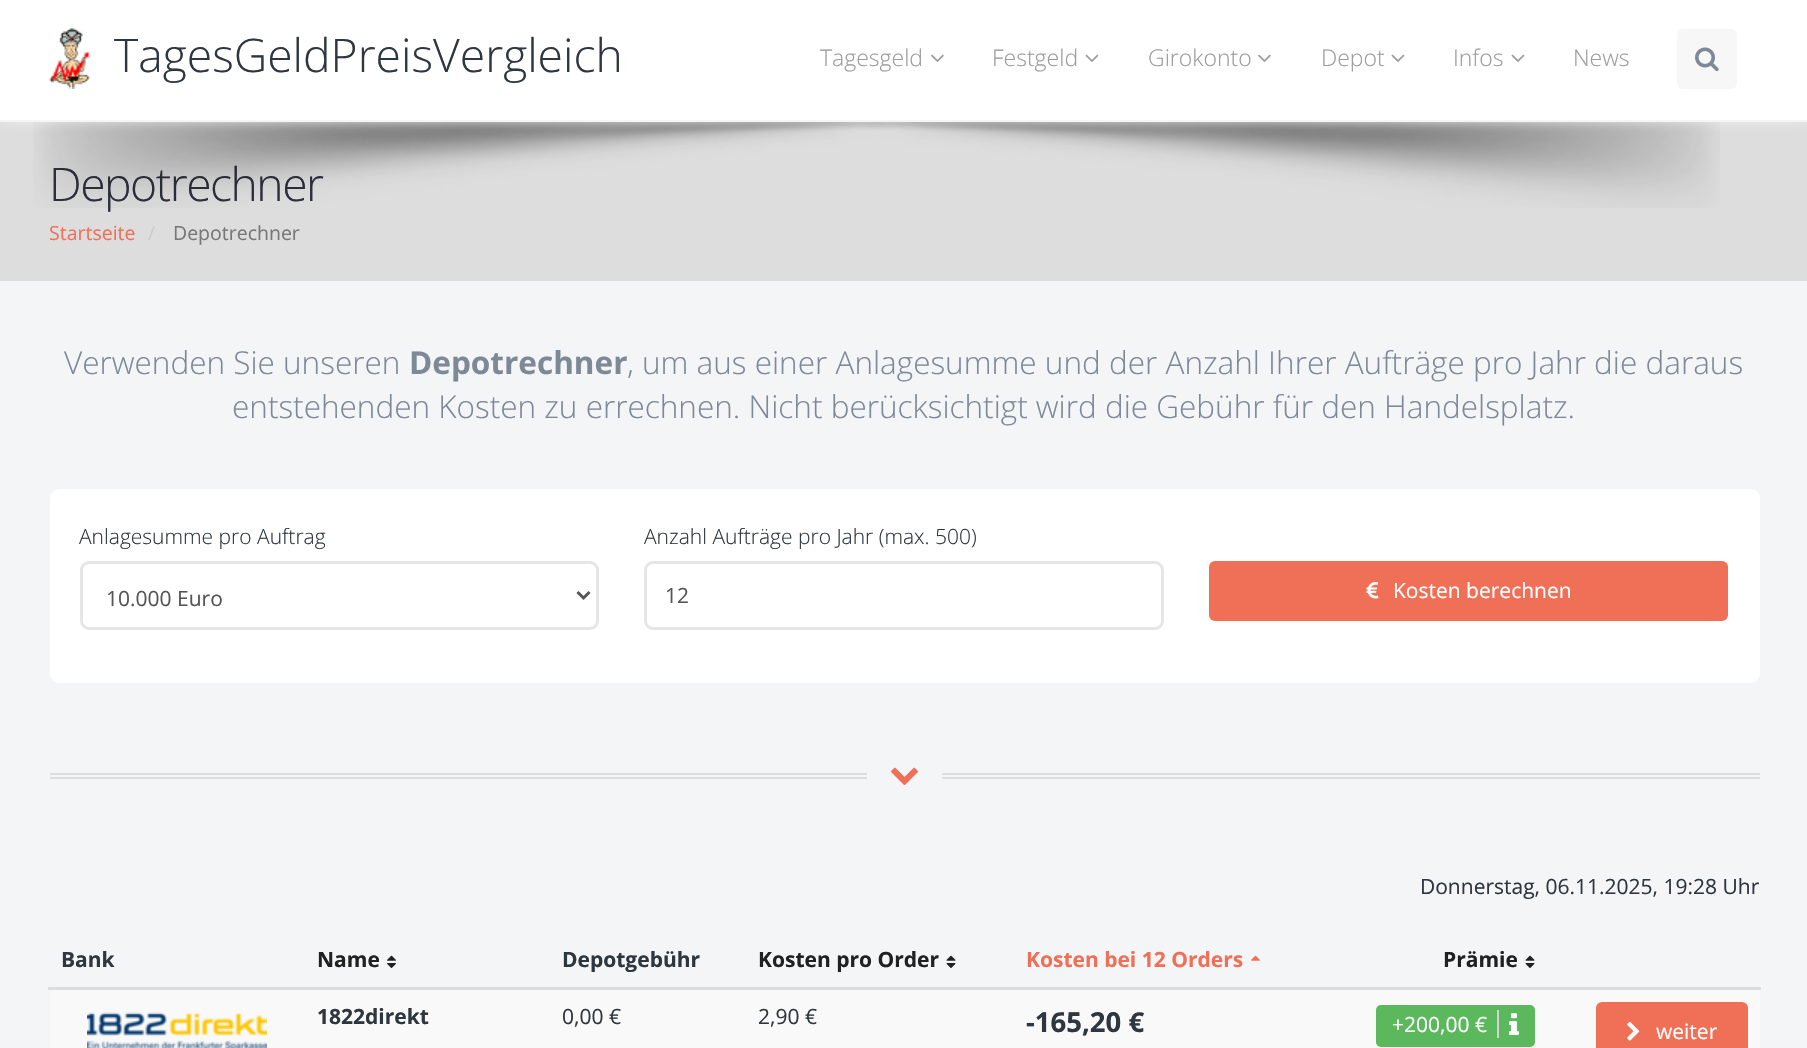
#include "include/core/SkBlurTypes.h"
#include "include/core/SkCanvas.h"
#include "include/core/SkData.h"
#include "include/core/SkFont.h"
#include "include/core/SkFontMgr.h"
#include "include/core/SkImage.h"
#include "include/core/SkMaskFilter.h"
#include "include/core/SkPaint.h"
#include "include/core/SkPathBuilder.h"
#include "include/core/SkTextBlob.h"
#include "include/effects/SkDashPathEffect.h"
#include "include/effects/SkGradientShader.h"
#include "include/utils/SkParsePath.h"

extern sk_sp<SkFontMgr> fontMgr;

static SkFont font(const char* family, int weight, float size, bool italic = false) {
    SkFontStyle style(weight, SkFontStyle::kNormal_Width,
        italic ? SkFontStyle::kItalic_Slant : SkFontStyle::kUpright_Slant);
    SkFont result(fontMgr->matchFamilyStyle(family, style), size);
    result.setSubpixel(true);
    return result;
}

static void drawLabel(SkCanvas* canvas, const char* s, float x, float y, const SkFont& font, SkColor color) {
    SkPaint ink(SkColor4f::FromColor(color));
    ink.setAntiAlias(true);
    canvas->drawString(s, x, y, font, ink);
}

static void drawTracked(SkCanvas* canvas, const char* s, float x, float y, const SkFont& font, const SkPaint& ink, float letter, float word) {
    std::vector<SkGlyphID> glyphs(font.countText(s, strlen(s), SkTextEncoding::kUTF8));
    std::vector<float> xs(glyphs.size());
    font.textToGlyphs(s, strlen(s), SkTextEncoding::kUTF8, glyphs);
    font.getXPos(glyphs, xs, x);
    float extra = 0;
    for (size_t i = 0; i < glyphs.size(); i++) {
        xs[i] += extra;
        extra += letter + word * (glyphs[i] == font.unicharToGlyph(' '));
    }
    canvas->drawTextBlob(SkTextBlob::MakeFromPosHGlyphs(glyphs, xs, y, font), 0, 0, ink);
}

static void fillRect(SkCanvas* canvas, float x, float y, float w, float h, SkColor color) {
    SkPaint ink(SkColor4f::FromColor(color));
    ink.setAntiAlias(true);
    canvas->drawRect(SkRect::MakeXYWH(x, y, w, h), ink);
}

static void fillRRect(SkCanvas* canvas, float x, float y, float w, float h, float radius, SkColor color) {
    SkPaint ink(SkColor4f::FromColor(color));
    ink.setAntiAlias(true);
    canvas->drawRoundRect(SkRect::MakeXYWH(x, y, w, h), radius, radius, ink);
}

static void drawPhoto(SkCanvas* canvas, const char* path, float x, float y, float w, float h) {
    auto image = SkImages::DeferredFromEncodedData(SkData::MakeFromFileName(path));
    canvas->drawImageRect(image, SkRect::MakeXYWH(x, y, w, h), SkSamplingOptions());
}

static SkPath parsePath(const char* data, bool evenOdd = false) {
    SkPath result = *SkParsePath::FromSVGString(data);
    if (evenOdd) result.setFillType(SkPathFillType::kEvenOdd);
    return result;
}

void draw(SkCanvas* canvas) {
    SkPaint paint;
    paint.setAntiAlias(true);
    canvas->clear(0xFFF4F5F7);
    fillRect(canvas, 0, 122, 1807, 159, 0xFFDDDDDD);
    SkFont font1 = font("Open Sans", 300, 46.25f);
    paint.setColor(0xFF2D2F3C);
    drawTracked(canvas, "Depotrechner", 49, 201, font1, paint, -1.5f, 0);
    drawPhoto(canvas, "assets/img5.png", 33, 122, 1687, 86);
    paint.setColor(0xFFEEEEEE);
    paint.setMaskFilter(SkMaskFilter::MakeBlur(kNormal_SkBlurStyle, 6));
    canvas->drawRect(SkRect::MakeXYWH(0, 0, 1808, 122), paint);
    paint.setMaskFilter(nullptr);
    fillRect(canvas, 0, 0, 1807, 120, 0xFFFFFFFF);
    fillRect(canvas, 0, 120, 1807, 2, 0xFFF4F5F7);
    drawPhoto(canvas, "assets/img1.png", 49, 28, 42, 61);
    drawLabel(canvas, "TagesGeldPreisVergleich", 114, 72, font1, 0xFF2E363F);
    SkFont font2 = font("Open Sans", 300, 23);
    drawLabel(canvas, "Tagesgeld", 820, 66, font2, 0xFF9C9C9C);
    drawPhoto(canvas, "assets/img2.png", 931, 54, 13, 8);
    drawLabel(canvas, "Festgeld", 992, 66, font2, 0xFF9C9C9C);
    drawPhoto(canvas, "assets/img3.png", 1085, 54, 14, 8);
    drawLabel(canvas, "Girokonto", 1148, 66, font2, 0xFF9C9C9C);
    drawPhoto(canvas, "assets/img2.png", 1258, 54, 13, 8);
    drawLabel(canvas, "Depot", 1321, 66, font2, 0xFF9C9C9C);
    drawPhoto(canvas, "assets/img3.png", 1391, 54, 14, 8);
    drawLabel(canvas, "Infos", 1453, 66, font2, 0xFF9C9C9C);
    drawPhoto(canvas, "assets/img3.png", 1511, 54, 14, 8);
    drawLabel(canvas, "News", 1573, 66, font2, 0xFF9C9C9C);
    fillRRect(canvas, 1677, 29, 60, 60, 6, 0xFFF7F7F7);
    drawPhoto(canvas, "assets/img4.png", 1695, 47, 24, 25);
    SkFont font3 = font("Open Sans", 400, 19.5f);
    drawLabel(canvas, "Startseite", 49, 240, font3, 0xFFF07057);
    drawLabel(canvas, "/", 148, 240, font3, 0xFFCCCCCC);
    drawLabel(canvas, "Depotrechner", 173, 240, font3, 0xFF777777);
    SkFont font4 = font("Open Sans", 300, 31.5f);
    drawLabel(canvas, "Verwenden Sie unseren", 64, 374, font4, 0xFF7E8998);
    SkFont font5 = font("Open Sans", 700, 31.5f);
    drawLabel(canvas, "Depotrechner", 409, 374, font5, 0xFF7E8998);
    drawLabel(canvas, ", um aus einer Anlagesumme und der Anzahl Ihrer Aufträge pro Jahr die daraus", 627, 374, font4, 0xFF7E8998);
    drawLabel(canvas, "entstehenden Kosten zu errechnen. Nicht berücksichtigt wird die Gebühr für den Handelsplatz.", 232, 418, font4, 0xFF7E8998);
    fillRRect(canvas, 50, 489, 1710, 194, 9, 0xFFFFFFFF);
    SkFont font6 = font("Open Sans", 300, 21);
    drawLabel(canvas, "Anlagesumme pro Auftrag", 79, 544, font6, 0xFF2E363F);
    paint.setStroke(true);
    paint.setStrokeWidth(3);
    paint.setColor(0xFFE6E6E6);
    canvas->drawRoundRect(SkRect::MakeXYWH(81.5f, 562.5f, 516, 66), 7.5f, 7.5f, paint);
    paint.setColor(0xFF555555);
    canvas->drawPath(parsePath("M577.5 592L583.5 598L589.5 592"), paint);
    SkFont font7 = font("Open Sans", 400, 21);
    drawLabel(canvas, "10.000 Euro", 106, 606, font7, 0xFF555555);
    drawLabel(canvas, "Anzahl Aufträge pro Jahr (max. 500)", 644, 544, font6, 0xFF2E363F);
    paint.setColor(0xFFE6E6E6);
    canvas->drawRoundRect(SkRect::MakeXYWH(645.5f, 562.5f, 517, 66), 7.5f, 7.5f, paint);
    drawLabel(canvas, "12", 665, 603, font7, 0xFF555555);
    fillRRect(canvas, 1209, 561, 519, 60, 6, 0xFFF07057);
    drawPhoto(canvas, "assets/img6.png", 1366, 582, 13, 17);
    drawLabel(canvas, "Kosten berechnen", 1393, 598, font7, 0xFFFFFFFF);
    fillRect(canvas, 50, 773, 1710, 2, 0xFFDDDDDD);
    fillRect(canvas, 50, 777, 1710, 2, 0xFFDDDDDD);
    fillRect(canvas, 867, 773, 75, 6, 0xFFF4F5F7);
    drawPhoto(canvas, "assets/img7.png", 891, 767, 27, 18);
    drawLabel(canvas, "Donnerstag, 06.11.2025, 19:28 Uhr", 1420, 894, font7, 0xFF2E363F);
    SkFont font8 = font("Open Sans", 700, 21);
    drawLabel(canvas, "Bank", 61, 967, font8, 0xFF2E363F);
    drawLabel(canvas, "Name", 317, 967, font8, 0xFF212121);
    drawPhoto(canvas, "assets/img8.png", 387, 955, 9, 13);
    drawLabel(canvas, "Depotgebühr", 562, 967, font8, 0xFF2E363F);
    drawLabel(canvas, "Kosten pro Order", 758, 967, font8, 0xFF212121);
    drawPhoto(canvas, "assets/img9.png", 946, 955, 10, 13);
    drawLabel(canvas, "Kosten bei 12 Orders", 1026, 967, font8, 0xFFF07057);
    drawPhoto(canvas, "assets/img10.png", 1251, 955, 9, 6);
    drawLabel(canvas, "Prämie", 1443, 967, font8, 0xFF212121);
    drawPhoto(canvas, "assets/img9.png", 1525, 955, 10, 13);
    fillRect(canvas, 48, 987, 1713, 3, 0xFFDDDDDD);
    fillRect(canvas, 50, 990, 1710, 58, 0xFFF9F9F9);
    drawPhoto(canvas, "assets/img11.png", 87, 1012, 180, 36);
    drawLabel(canvas, "1822direkt", 317, 1024, font8, 0xFF2E363F);
    drawLabel(canvas, "0,00 €", 562, 1024, font7, 0xFF2E363F);
    drawLabel(canvas, "2,90 €", 758, 1024, font7, 0xFF2E363F);
    SkFont font9 = font("Open Sans", 700, 27.5f);
    drawLabel(canvas, "-165,20 €", 1026, 1032, font9, 0xFF2E363F);
    fillRRect(canvas, 1376, 1005, 159, 42, 5, 0xFF5CB85C);
    drawLabel(canvas, "+200,00 €", 1392, 1032, font7, 0xFFFFFFFF);
    fillRect(canvas, 1497, 1010, 2, 28, 0xFFD3D3D3);
    drawPhoto(canvas, "assets/img12.png", 1509, 1013, 10, 22);
    fillRRect(canvas, 1596, 1002, 152, 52, 6, 0xFFF07057);
    drawPhoto(canvas, "assets/img13.png", 1627, 1021, 13, 20);
    drawLabel(canvas, "weiter", 1656, 1039, font7, 0xFFFFFFFF);
}
